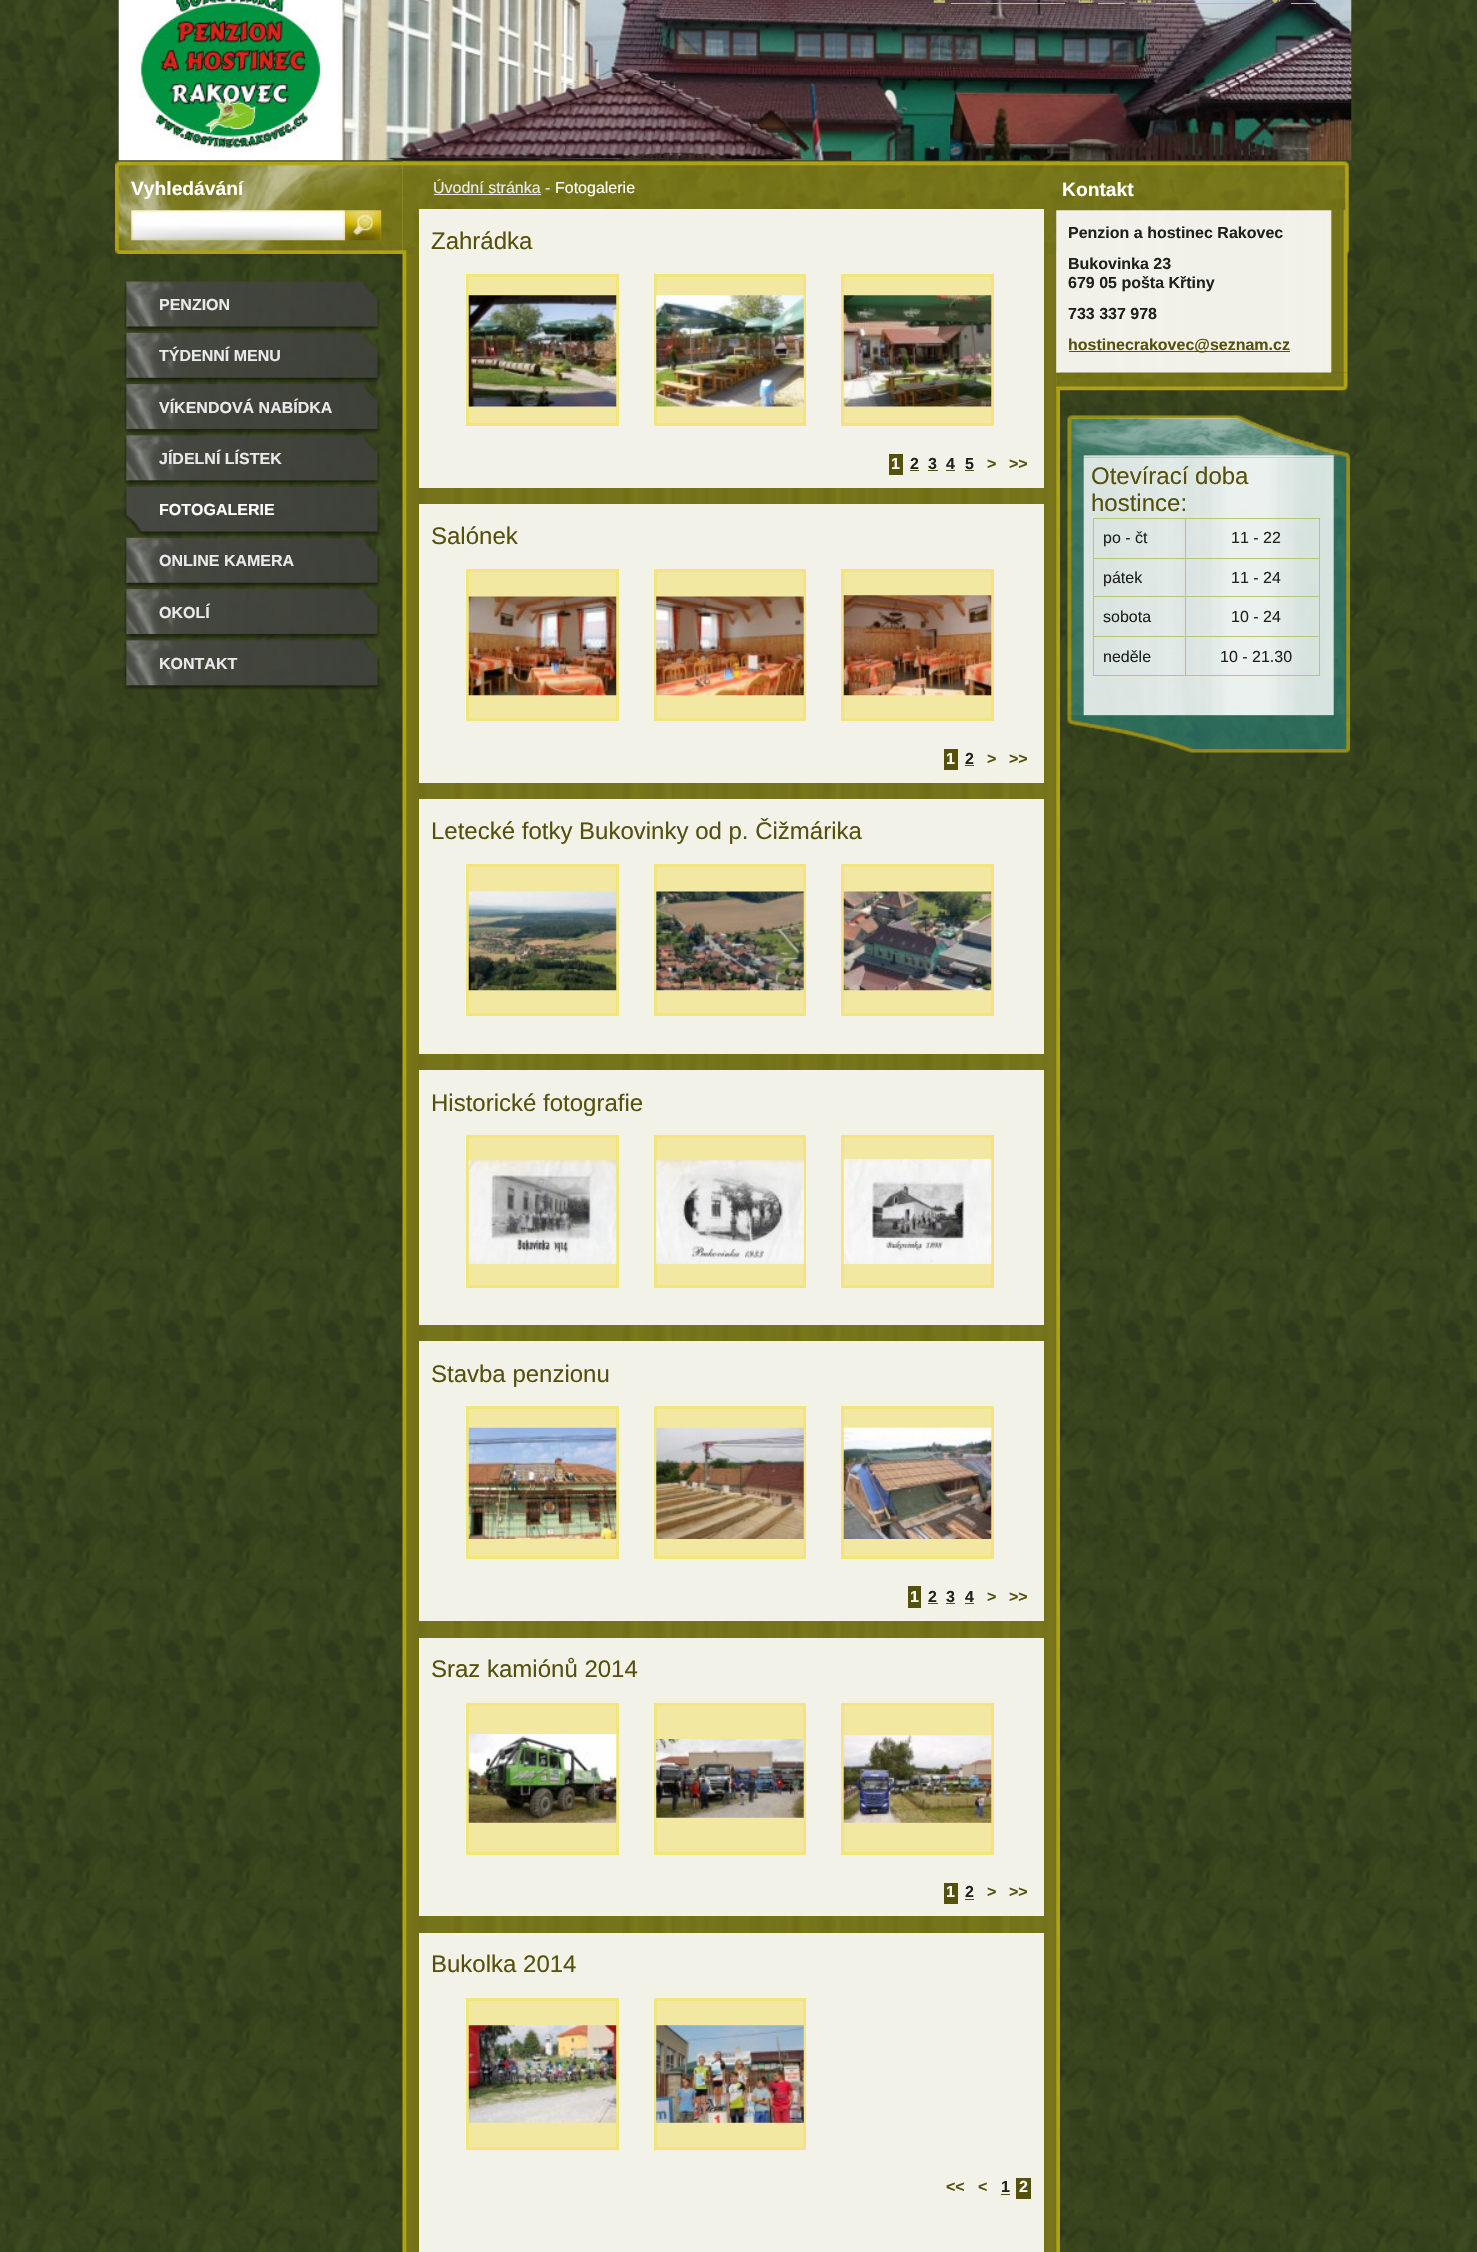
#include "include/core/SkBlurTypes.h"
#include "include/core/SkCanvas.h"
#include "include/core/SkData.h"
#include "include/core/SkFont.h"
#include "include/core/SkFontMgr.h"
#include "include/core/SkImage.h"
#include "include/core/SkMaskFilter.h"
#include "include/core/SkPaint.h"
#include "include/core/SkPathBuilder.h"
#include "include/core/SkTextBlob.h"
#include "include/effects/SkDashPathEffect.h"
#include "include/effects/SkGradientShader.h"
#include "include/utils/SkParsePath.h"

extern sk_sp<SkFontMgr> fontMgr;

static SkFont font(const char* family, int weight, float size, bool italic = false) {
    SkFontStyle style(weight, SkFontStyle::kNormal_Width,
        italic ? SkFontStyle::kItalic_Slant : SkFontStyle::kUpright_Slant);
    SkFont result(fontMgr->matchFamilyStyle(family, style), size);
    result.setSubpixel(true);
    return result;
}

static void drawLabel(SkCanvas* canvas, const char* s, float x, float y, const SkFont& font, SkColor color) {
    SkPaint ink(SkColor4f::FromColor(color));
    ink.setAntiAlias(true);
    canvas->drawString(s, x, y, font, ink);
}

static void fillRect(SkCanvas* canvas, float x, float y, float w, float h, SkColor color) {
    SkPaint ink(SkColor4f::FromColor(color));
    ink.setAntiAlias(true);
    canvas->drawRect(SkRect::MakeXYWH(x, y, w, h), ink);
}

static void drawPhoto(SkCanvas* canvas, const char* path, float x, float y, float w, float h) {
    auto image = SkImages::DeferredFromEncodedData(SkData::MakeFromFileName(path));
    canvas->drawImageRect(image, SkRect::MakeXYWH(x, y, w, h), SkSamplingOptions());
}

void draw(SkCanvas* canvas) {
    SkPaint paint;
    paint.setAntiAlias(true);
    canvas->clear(0xFFFFFFFF);
    drawPhoto(canvas, "assets/img1.png", 0, 0, 1477, 2252);
    drawPhoto(canvas, "assets/img2.png", 118, 0, 1234, 161);
    drawPhoto(canvas, "assets/img3.png", 933, 0, 13, 3);
    drawPhoto(canvas, "assets/img4.png", 1078, 0, 15, 3);
    drawPhoto(canvas, "assets/img5.png", 1137, 0, 15, 3);
    drawPhoto(canvas, "assets/img6.png", 1272, 0, 11, 3);
    fillRect(canvas, 951, 3, 114, 1, 0xFFBFC273);
    fillRect(canvas, 1098, 3, 27, 1, 0xFFBFC273);
    fillRect(canvas, 1156, 3, 104, 1, 0xFFBFC273);
    fillRect(canvas, 1291, 3, 25, 1, 0xFFBFC273);
    drawPhoto(canvas, "assets/img7.png", 115, 161, 1234, 93);
    SkFont font1 = font("Liberation Sans", 700, 19.25f);
    drawLabel(canvas, "Vyhledávání", 131, 195, font1, 0xFFFFFFFF);
    drawPhoto(canvas, "assets/img8.png", 131, 210, 214, 31);
    drawPhoto(canvas, "assets/img9.png", 345, 210, 37, 31);
    drawPhoto(canvas, "assets/img10.png", 402, 161, 658, 2091);
    drawPhoto(canvas, "assets/img11.png", 402, 161, 658, 93);
    SkFont font2 = font("Liberation Sans", 400, 16);
    drawLabel(canvas, "Úvodní stránka -", 433, 193, font2, 0xFFE9E9E9);
    fillRect(canvas, 434, 194, 107, 1, 0xFFE9E9E9);
    drawLabel(canvas, "Fotogalerie", 555, 193, font2, 0xFFFFFFFF);
    fillRect(canvas, 419, 209, 625, 279, 0xFFF2F2E9);
    SkFont font3 = font("Liberation Sans", 400, 24);
    drawLabel(canvas, "Zahrádka", 431, 249, font3, 0xFF56500D);
    paint.setColor(0xFFF2E8A1);
    canvas->drawRect(SkRect::MakeXYWH(467.5f, 275.5f, 150, 149), paint);
    paint.setStroke(true);
    paint.setStrokeWidth(3);
    paint.setColor(0xFFF3E47C);
    canvas->drawRect(SkRect::MakeXYWH(467.5f, 275.5f, 150, 149), paint);
    drawPhoto(canvas, "assets/img12.png", 468, 295, 149, 112);
    paint.setStroke(false);
    paint.setColor(0xFFF2E8A1);
    canvas->drawRect(SkRect::MakeXYWH(655.5f, 275.5f, 149, 149), paint);
    paint.setStroke(true);
    paint.setColor(0xFFF3E47C);
    canvas->drawRect(SkRect::MakeXYWH(655.5f, 275.5f, 149, 149), paint);
    fillRect(canvas, 656, 295, 148, 111, 0xFFF2E8A1);
    drawPhoto(canvas, "assets/img13.png", 656, 295, 148, 112);
    paint.setStroke(false);
    paint.setColor(0xFFF2E8A1);
    canvas->drawRect(SkRect::MakeXYWH(842.5f, 275.5f, 150, 149), paint);
    paint.setStroke(true);
    paint.setColor(0xFFF3E47C);
    canvas->drawRect(SkRect::MakeXYWH(842.5f, 275.5f, 150, 149), paint);
    drawPhoto(canvas, "assets/img14.png", 843, 295, 149, 112);
    fillRect(canvas, 889, 454, 14, 21, 0xFF56500D);
    SkFont font4 = font("Liberation Sans", 700, 16);
    drawLabel(canvas, "1", 891, 469, font4, 0xFFFFFFFF);
    drawLabel(canvas, "2", 910, 469, font4, 0xFF1F221C);
    fillRect(canvas, 910, 470, 9, 1, 0xFF56500D);
    drawLabel(canvas, "3", 928, 469, font4, 0xFF1F221C);
    fillRect(canvas, 928, 470, 10, 1, 0xFF56500D);
    drawLabel(canvas, "4", 946, 469, font4, 0xFF1F221C);
    fillRect(canvas, 946, 470, 9, 1, 0xFF56500D);
    drawLabel(canvas, "5", 965, 469, font4, 0xFF1F221C);
    fillRect(canvas, 965, 470, 9, 1, 0xFF56500D);
    drawLabel(canvas, ">", 987, 469, font4, 0xFF56500D);
    drawLabel(canvas, ">>", 1009, 469, font4, 0xFF56500D);
    fillRect(canvas, 419, 504, 625, 279, 0xFFF2F2E9);
    drawLabel(canvas, "Salónek", 431, 544, font3, 0xFF56500D);
    paint.setStroke(false);
    paint.setColor(0xFFF2E8A1);
    canvas->drawRect(SkRect::MakeXYWH(467.5f, 570.5f, 150, 149), paint);
    paint.setStroke(true);
    paint.setColor(0xFFF3E47C);
    canvas->drawRect(SkRect::MakeXYWH(467.5f, 570.5f, 150, 149), paint);
    drawPhoto(canvas, "assets/img15.png", 468, 596, 149, 100);
    paint.setStroke(false);
    paint.setColor(0xFFF2E8A1);
    canvas->drawRect(SkRect::MakeXYWH(655.5f, 570.5f, 149, 149), paint);
    paint.setStroke(true);
    paint.setColor(0xFFF3E47C);
    canvas->drawRect(SkRect::MakeXYWH(655.5f, 570.5f, 149, 149), paint);
    fillRect(canvas, 656, 596, 148, 99, 0xFFF2E8A1);
    drawPhoto(canvas, "assets/img16.png", 656, 596, 148, 100);
    paint.setStroke(false);
    paint.setColor(0xFFF2E8A1);
    canvas->drawRect(SkRect::MakeXYWH(842.5f, 570.5f, 150, 149), paint);
    paint.setStroke(true);
    paint.setColor(0xFFF3E47C);
    canvas->drawRect(SkRect::MakeXYWH(842.5f, 570.5f, 150, 149), paint);
    drawPhoto(canvas, "assets/img17.png", 843, 595, 149, 101);
    fillRect(canvas, 944, 749, 14, 21, 0xFF56500D);
    drawLabel(canvas, "1", 946, 764, font4, 0xFFFFFFFF);
    drawLabel(canvas, "2", 965, 764, font4, 0xFF1F221C);
    fillRect(canvas, 965, 765, 9, 1, 0xFF56500D);
    drawLabel(canvas, ">", 987, 764, font4, 0xFF56500D);
    drawLabel(canvas, ">>", 1009, 764, font4, 0xFF56500D);
    fillRect(canvas, 419, 799, 625, 255, 0xFFF2F2E9);
    drawLabel(canvas, "Letecké fotky Bukovinky od p. Čižmárika", 431, 839, font3, 0xFF56500D);
    paint.setStroke(false);
    paint.setColor(0xFFF2E8A1);
    canvas->drawRect(SkRect::MakeXYWH(467.5f, 865.5f, 150, 149), paint);
    paint.setStroke(true);
    paint.setColor(0xFFF3E47C);
    canvas->drawRect(SkRect::MakeXYWH(467.5f, 865.5f, 150, 149), paint);
    drawPhoto(canvas, "assets/img18.png", 468, 891, 149, 100);
    paint.setStroke(false);
    paint.setColor(0xFFF2E8A1);
    canvas->drawRect(SkRect::MakeXYWH(655.5f, 865.5f, 149, 149), paint);
    paint.setStroke(true);
    paint.setColor(0xFFF3E47C);
    canvas->drawRect(SkRect::MakeXYWH(655.5f, 865.5f, 149, 149), paint);
    fillRect(canvas, 656, 891, 148, 99, 0xFFF2E8A1);
    drawPhoto(canvas, "assets/img19.png", 656, 891, 148, 100);
    paint.setStroke(false);
    paint.setColor(0xFFF2E8A1);
    canvas->drawRect(SkRect::MakeXYWH(842.5f, 865.5f, 150, 149), paint);
    paint.setStroke(true);
    paint.setColor(0xFFF3E47C);
    canvas->drawRect(SkRect::MakeXYWH(842.5f, 865.5f, 150, 149), paint);
    drawPhoto(canvas, "assets/img20.png", 843, 891, 149, 100);
    fillRect(canvas, 419, 1070, 625, 255, 0xFFF2F2E9);
    drawLabel(canvas, "Historické fotografie", 431, 1111, font3, 0xFF56500D);
    paint.setStroke(false);
    paint.setColor(0xFFF2E8A1);
    canvas->drawRect(SkRect::MakeXYWH(467.5f, 1136.5f, 150, 150), paint);
    paint.setStroke(true);
    paint.setColor(0xFFF3E47C);
    canvas->drawRect(SkRect::MakeXYWH(467.5f, 1136.5f, 150, 150), paint);
    drawPhoto(canvas, "assets/img21.png", 468, 1160, 149, 104);
    paint.setStroke(false);
    paint.setColor(0xFFF2E8A1);
    canvas->drawRect(SkRect::MakeXYWH(655.5f, 1136.5f, 149, 150), paint);
    paint.setStroke(true);
    paint.setColor(0xFFF3E47C);
    canvas->drawRect(SkRect::MakeXYWH(655.5f, 1136.5f, 149, 150), paint);
    fillRect(canvas, 656, 1160, 148, 104, 0xFFF2E8A1);
    drawPhoto(canvas, "assets/img22.png", 656, 1160, 148, 104);
    paint.setStroke(false);
    paint.setColor(0xFFF2E8A1);
    canvas->drawRect(SkRect::MakeXYWH(842.5f, 1136.5f, 150, 150), paint);
    paint.setStroke(true);
    paint.setColor(0xFFF3E47C);
    canvas->drawRect(SkRect::MakeXYWH(842.5f, 1136.5f, 150, 150), paint);
    drawPhoto(canvas, "assets/img23.png", 843, 1159, 149, 105);
    fillRect(canvas, 419, 1341, 625, 280, 0xFFF2F2E9);
    drawLabel(canvas, "Stavba penzionu", 431, 1382, font3, 0xFF56500D);
    paint.setStroke(false);
    paint.setColor(0xFFF2E8A1);
    canvas->drawRect(SkRect::MakeXYWH(467.5f, 1407.5f, 150, 150), paint);
    paint.setStroke(true);
    paint.setColor(0xFFF3E47C);
    canvas->drawRect(SkRect::MakeXYWH(467.5f, 1407.5f, 150, 150), paint);
    drawPhoto(canvas, "assets/img24.png", 468, 1427, 149, 112);
    paint.setStroke(false);
    paint.setColor(0xFFF2E8A1);
    canvas->drawRect(SkRect::MakeXYWH(655.5f, 1407.5f, 149, 150), paint);
    paint.setStroke(true);
    paint.setColor(0xFFF3E47C);
    canvas->drawRect(SkRect::MakeXYWH(655.5f, 1407.5f, 149, 150), paint);
    drawPhoto(canvas, "assets/img25.png", 656, 1427, 148, 112);
    paint.setStroke(false);
    paint.setColor(0xFFF2E8A1);
    canvas->drawRect(SkRect::MakeXYWH(842.5f, 1407.5f, 150, 150), paint);
    paint.setStroke(true);
    paint.setColor(0xFFF3E47C);
    canvas->drawRect(SkRect::MakeXYWH(842.5f, 1407.5f, 150, 150), paint);
    drawPhoto(canvas, "assets/img26.png", 843, 1427, 149, 112);
    fillRect(canvas, 908, 1586, 13, 22, 0xFF56500D);
    drawLabel(canvas, "1", 910, 1602, font4, 0xFFFFFFFF);
    drawLabel(canvas, "2", 928, 1602, font4, 0xFF1F221C);
    fillRect(canvas, 928, 1603, 10, 1, 0xFF56500D);
    drawLabel(canvas, "3", 946, 1602, font4, 0xFF1F221C);
    fillRect(canvas, 946, 1603, 9, 1, 0xFF56500D);
    drawLabel(canvas, "4", 965, 1602, font4, 0xFF1F221C);
    fillRect(canvas, 965, 1603, 9, 1, 0xFF56500D);
    drawLabel(canvas, ">", 987, 1602, font4, 0xFF56500D);
    drawLabel(canvas, ">>", 1009, 1602, font4, 0xFF56500D);
    fillRect(canvas, 419, 1638, 625, 278, 0xFFF2F2E9);
    drawLabel(canvas, "Sraz kamiónů 2014", 431, 1677, font3, 0xFF56500D);
    paint.setStroke(false);
    paint.setColor(0xFFF2E8A1);
    canvas->drawRect(SkRect::MakeXYWH(467.5f, 1704.5f, 150, 149), paint);
    paint.setStroke(true);
    paint.setColor(0xFFF3E47C);
    canvas->drawRect(SkRect::MakeXYWH(467.5f, 1704.5f, 150, 149), paint);
    drawPhoto(canvas, "assets/img27.png", 468, 1734, 149, 89);
    paint.setStroke(false);
    paint.setColor(0xFFF2E8A1);
    canvas->drawRect(SkRect::MakeXYWH(655.5f, 1704.5f, 149, 149), paint);
    paint.setStroke(true);
    paint.setColor(0xFFF3E47C);
    canvas->drawRect(SkRect::MakeXYWH(655.5f, 1704.5f, 149, 149), paint);
    fillRect(canvas, 656, 1739, 148, 79, 0xFFF2E8A1);
    drawPhoto(canvas, "assets/img28.png", 656, 1739, 148, 79);
    paint.setStroke(false);
    paint.setColor(0xFFF2E8A1);
    canvas->drawRect(SkRect::MakeXYWH(842.5f, 1704.5f, 150, 149), paint);
    paint.setStroke(true);
    paint.setColor(0xFFF3E47C);
    canvas->drawRect(SkRect::MakeXYWH(842.5f, 1704.5f, 150, 149), paint);
    drawPhoto(canvas, "assets/img29.png", 843, 1735, 149, 88);
    fillRect(canvas, 944, 1883, 14, 21, 0xFF56500D);
    drawLabel(canvas, "1", 946, 1897, font4, 0xFFFFFFFF);
    drawLabel(canvas, "2", 965, 1897, font4, 0xFF1F221C);
    fillRect(canvas, 965, 1899, 9, 1, 0xFF56500D);
    drawLabel(canvas, ">", 987, 1897, font4, 0xFF56500D);
    drawLabel(canvas, ">>", 1009, 1897, font4, 0xFF56500D);
    fillRect(canvas, 419, 1933, 625, 319, 0xFFF2F2E9);
    drawLabel(canvas, "Bukolka 2014", 431, 1972, font3, 0xFF56500D);
    paint.setStroke(false);
    paint.setColor(0xFFF2E8A1);
    canvas->drawRect(SkRect::MakeXYWH(467.5f, 1999.5f, 150, 149), paint);
    paint.setStroke(true);
    paint.setColor(0xFFF3E47C);
    canvas->drawRect(SkRect::MakeXYWH(467.5f, 1999.5f, 150, 149), paint);
    drawPhoto(canvas, "assets/img30.png", 468, 2025, 149, 98);
    paint.setStroke(false);
    paint.setColor(0xFFF2E8A1);
    canvas->drawRect(SkRect::MakeXYWH(655.5f, 1999.5f, 149, 149), paint);
    paint.setStroke(true);
    paint.setColor(0xFFF3E47C);
    canvas->drawRect(SkRect::MakeXYWH(655.5f, 1999.5f, 149, 149), paint);
    fillRect(canvas, 656, 2025, 148, 98, 0xFFF2E8A1);
    drawPhoto(canvas, "assets/img31.png", 656, 2025, 148, 98);
    drawLabel(canvas, "<<", 946, 2192, font4, 0xFF56500D);
    drawLabel(canvas, "<", 978, 2192, font4, 0xFF56500D);
    drawLabel(canvas, "1", 1001, 2192, font4, 0xFF1F221C);
    fillRect(canvas, 1001, 2194, 9, 1, 0xFF56500D);
    fillRect(canvas, 1016, 2178, 15, 21, 0xFF56500D);
    drawLabel(canvas, "2", 1019, 2192, font4, 0xFFFFFFFF);
    drawLabel(canvas, "Kontakt", 1062, 196, font1, 0xFFFFFFFF);
    drawPhoto(canvas, "assets/img32.png", 1056, 210, 292, 163);
    drawLabel(canvas, "Penzion a hostinec Rakovec", 1068, 238, font4, 0xFF1F221C);
    drawLabel(canvas, "Bukovinka 23", 1068, 269, font4, 0xFF1F221C);
    drawLabel(canvas, "679 05 pošta Křtiny", 1068, 288, font4, 0xFF1F221C);
    drawLabel(canvas, "733 337 978", 1068, 319, font4, 0xFF1F221C);
    fillRect(canvas, 1069, 351, 221, 1, 0xFF56500D);
    drawLabel(canvas, "hostinecrakovec@seznam.cz", 1068, 350, font4, 0xFF56500D);
    drawPhoto(canvas, "assets/img33.png", 1056, 372, 292, 19);
    drawPhoto(canvas, "assets/img34.png", 1067, 415, 283, 43);
    drawPhoto(canvas, "assets/img35.png", 1067, 457, 283, 259);
    drawLabel(canvas, "Otevírací doba", 1091, 484, font3, 0xFF56500D);
    drawLabel(canvas, "hostince:", 1091, 511, font3, 0xFF56500D);
    fillRect(canvas, 1185, 518, 135, 1, 0xFFBFC273);
    fillRect(canvas, 1185, 558, 135, 1, 0xFFBFC273);
    fillRect(canvas, 1185, 596, 135, 1, 0xFFBFC273);
    fillRect(canvas, 1185, 636, 135, 1, 0xFFBFC273);
    fillRect(canvas, 1319, 636, 1, 40, 0xFFBFC273);
    fillRect(canvas, 1185, 675, 135, 1, 0xFFBFC273);
    fillRect(canvas, 1185, 636, 1, 40, 0xFFBFC273);
    fillRect(canvas, 1093, 636, 93, 1, 0xFFBFC273);
    fillRect(canvas, 1185, 596, 1, 42, 0xFFBFC273);
    fillRect(canvas, 1093, 596, 93, 1, 0xFFBFC273);
    fillRect(canvas, 1185, 558, 1, 40, 0xFFBFC273);
    fillRect(canvas, 1093, 558, 93, 1, 0xFFBFC273);
    fillRect(canvas, 1185, 518, 1, 41, 0xFFBFC273);
    fillRect(canvas, 1093, 518, 93, 1, 0xFFBFC273);
    fillRect(canvas, 1093, 675, 93, 1, 0xFFBFC273);
    fillRect(canvas, 1093, 636, 1, 40, 0xFFBFC273);
    fillRect(canvas, 1093, 596, 1, 42, 0xFFBFC273);
    fillRect(canvas, 1093, 558, 1, 40, 0xFFBFC273);
    fillRect(canvas, 1093, 518, 1, 41, 0xFFBFC273);
    drawLabel(canvas, "po - čt", 1103, 543, font2, 0xFF1F221C);
    fillRect(canvas, 1319, 596, 1, 42, 0xFFBFC273);
    fillRect(canvas, 1319, 558, 1, 40, 0xFFBFC273);
    fillRect(canvas, 1319, 518, 1, 41, 0xFFBFC273);
    drawLabel(canvas, "11 - 22", 1231, 543, font2, 0xFF1F221C);
    drawLabel(canvas, "pátek", 1103, 583, font2, 0xFF1F221C);
    drawLabel(canvas, "11 - 24", 1231, 583, font2, 0xFF1F221C);
    drawLabel(canvas, "sobota", 1103, 622, font2, 0xFF1F221C);
    drawLabel(canvas, "10 - 24", 1231, 622, font2, 0xFF1F221C);
    drawLabel(canvas, "neděle", 1103, 662, font2, 0xFF1F221C);
    drawLabel(canvas, "10 - 21.30", 1220, 662, font2, 0xFF1F221C);
    drawPhoto(canvas, "assets/img36.png", 1067, 715, 283, 38);
    drawPhoto(canvas, "assets/img37.png", 124, 281, 256, 50);
    drawLabel(canvas, "PENZION", 159, 310, font4, 0xFFE9E9E9);
    drawPhoto(canvas, "assets/img38.png", 124, 332, 256, 51);
    drawLabel(canvas, "TÝDENNÍ MENU", 159, 361, font4, 0xFFE9E9E9);
    drawPhoto(canvas, "assets/img39.png", 124, 384, 256, 50);
    drawLabel(canvas, "VÍKENDOVÁ NABÍDKA", 159, 413, font4, 0xFFE9E9E9);
    drawPhoto(canvas, "assets/img40.png", 124, 435, 256, 50);
    drawLabel(canvas, "JÍDELNÍ LÍSTEK", 159, 464, font4, 0xFFE9E9E9);
    drawPhoto(canvas, "assets/img41.png", 123, 486, 257, 50);
    drawLabel(canvas, "FOTOGALERIE", 159, 515, font4, 0xFFFFFFFF);
    drawPhoto(canvas, "assets/img42.png", 124, 537, 256, 51);
    drawLabel(canvas, "ONLINE KAMERA", 159, 566, font4, 0xFFE9E9E9);
    drawPhoto(canvas, "assets/img43.png", 124, 589, 256, 50);
    drawLabel(canvas, "OKOLÍ", 159, 618, font4, 0xFFE9E9E9);
    drawPhoto(canvas, "assets/img44.png", 123, 640, 257, 50);
    drawLabel(canvas, "KONTAKT", 159, 669, font4, 0xFFE9E9E9);
}
